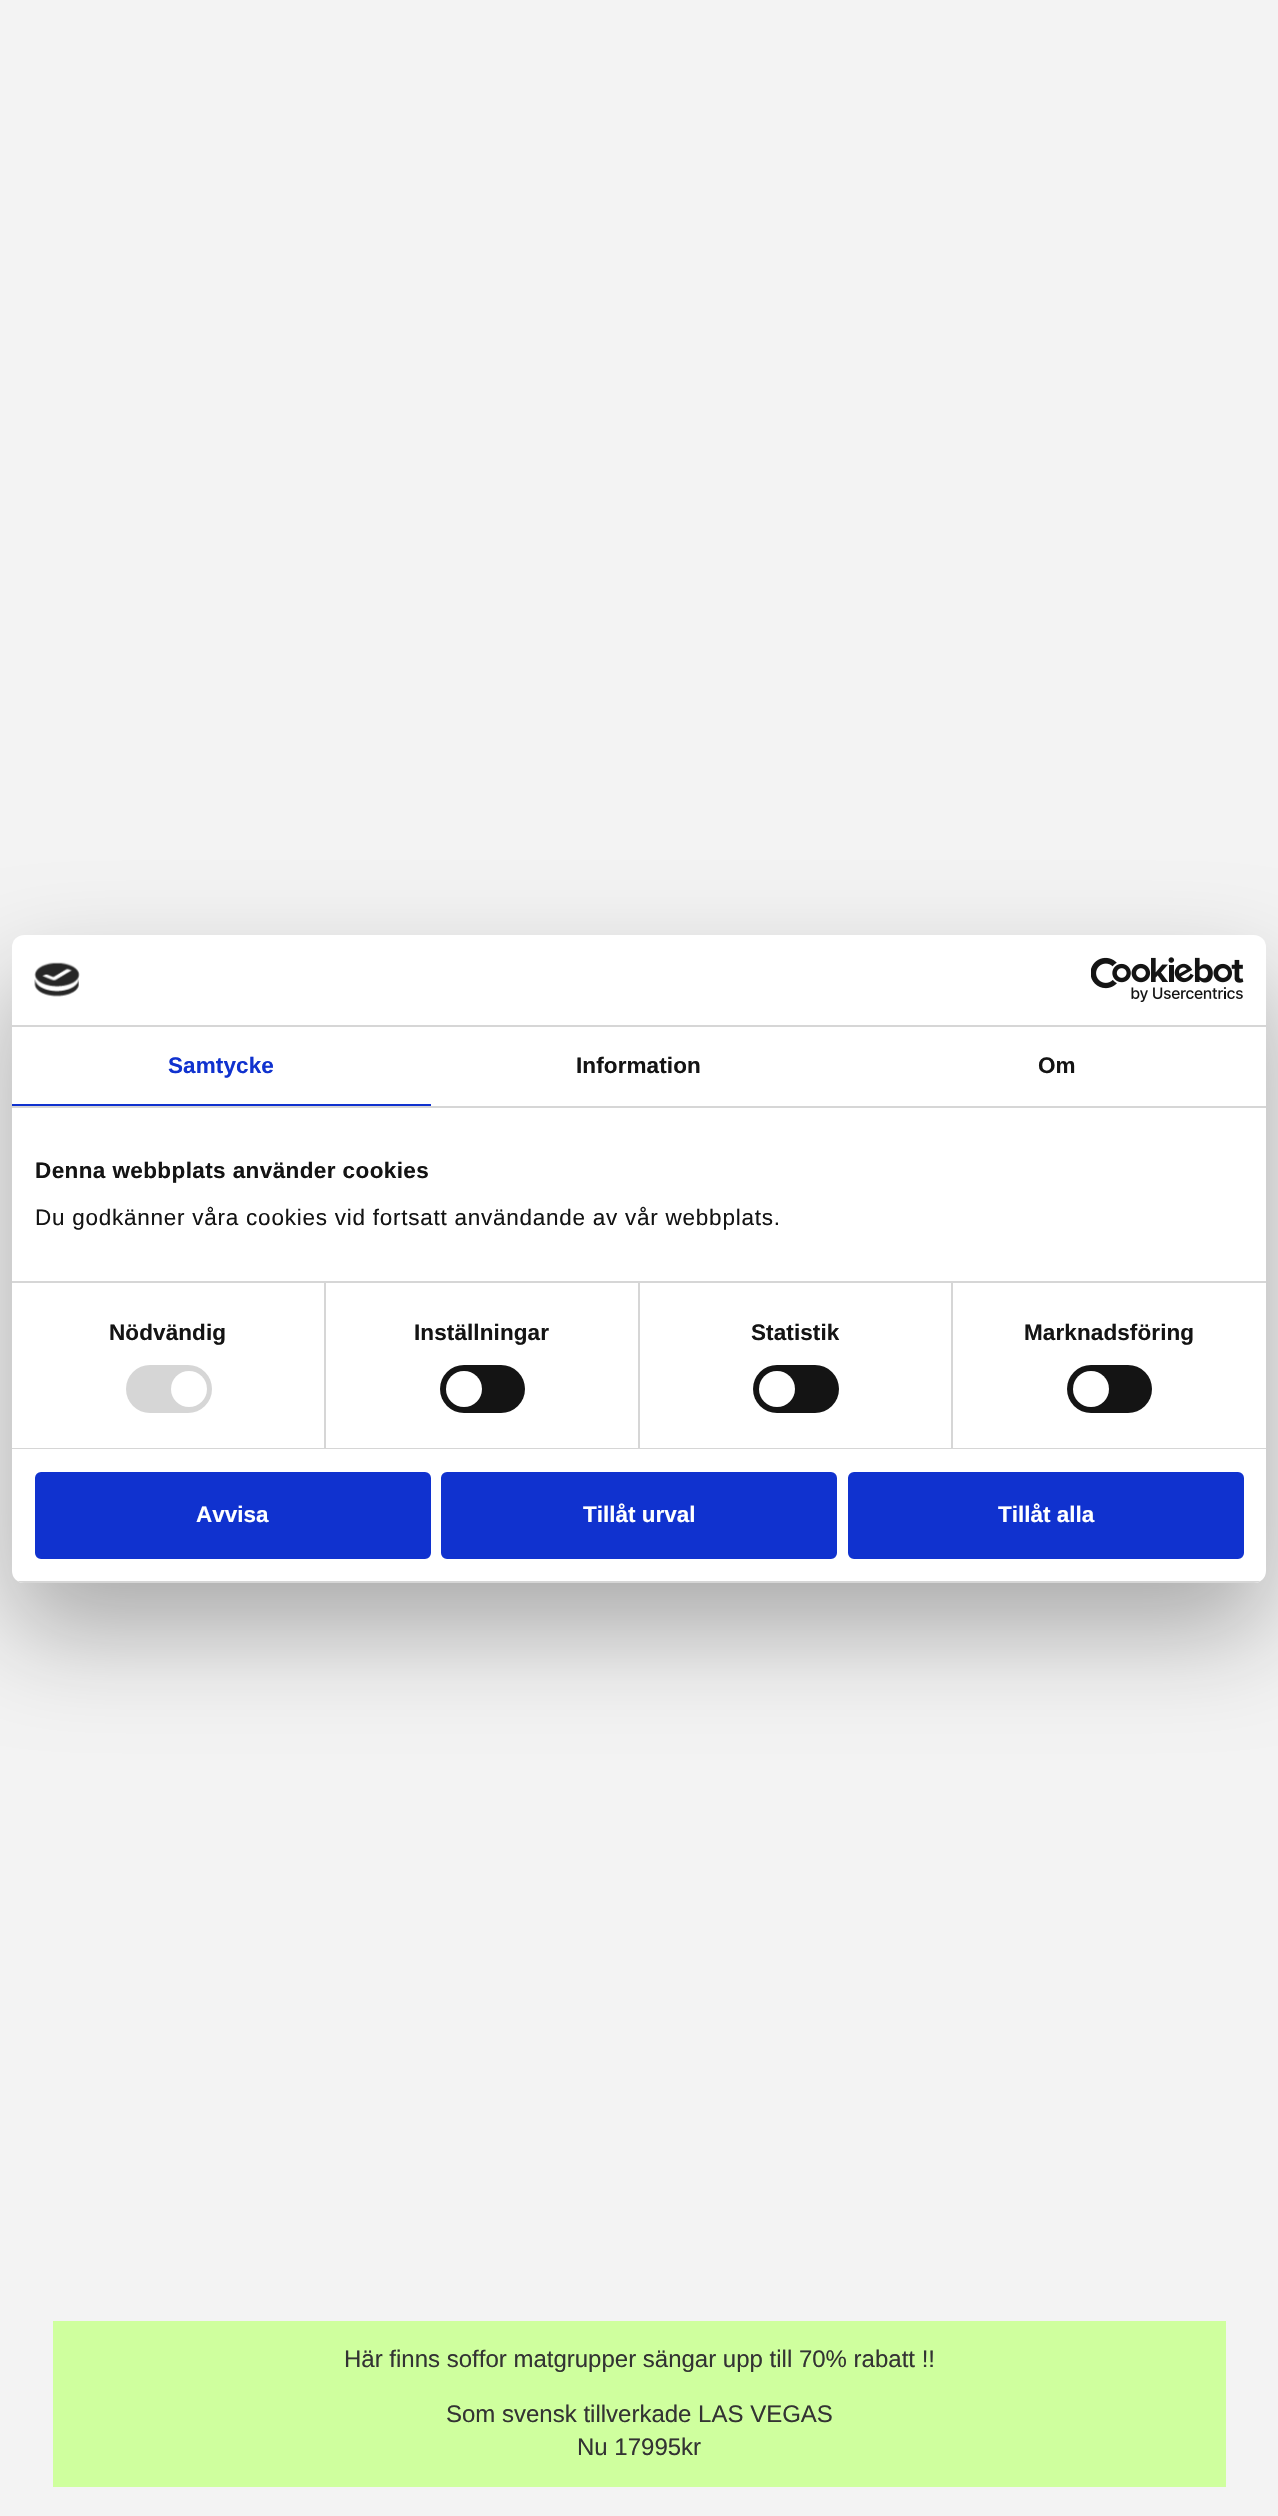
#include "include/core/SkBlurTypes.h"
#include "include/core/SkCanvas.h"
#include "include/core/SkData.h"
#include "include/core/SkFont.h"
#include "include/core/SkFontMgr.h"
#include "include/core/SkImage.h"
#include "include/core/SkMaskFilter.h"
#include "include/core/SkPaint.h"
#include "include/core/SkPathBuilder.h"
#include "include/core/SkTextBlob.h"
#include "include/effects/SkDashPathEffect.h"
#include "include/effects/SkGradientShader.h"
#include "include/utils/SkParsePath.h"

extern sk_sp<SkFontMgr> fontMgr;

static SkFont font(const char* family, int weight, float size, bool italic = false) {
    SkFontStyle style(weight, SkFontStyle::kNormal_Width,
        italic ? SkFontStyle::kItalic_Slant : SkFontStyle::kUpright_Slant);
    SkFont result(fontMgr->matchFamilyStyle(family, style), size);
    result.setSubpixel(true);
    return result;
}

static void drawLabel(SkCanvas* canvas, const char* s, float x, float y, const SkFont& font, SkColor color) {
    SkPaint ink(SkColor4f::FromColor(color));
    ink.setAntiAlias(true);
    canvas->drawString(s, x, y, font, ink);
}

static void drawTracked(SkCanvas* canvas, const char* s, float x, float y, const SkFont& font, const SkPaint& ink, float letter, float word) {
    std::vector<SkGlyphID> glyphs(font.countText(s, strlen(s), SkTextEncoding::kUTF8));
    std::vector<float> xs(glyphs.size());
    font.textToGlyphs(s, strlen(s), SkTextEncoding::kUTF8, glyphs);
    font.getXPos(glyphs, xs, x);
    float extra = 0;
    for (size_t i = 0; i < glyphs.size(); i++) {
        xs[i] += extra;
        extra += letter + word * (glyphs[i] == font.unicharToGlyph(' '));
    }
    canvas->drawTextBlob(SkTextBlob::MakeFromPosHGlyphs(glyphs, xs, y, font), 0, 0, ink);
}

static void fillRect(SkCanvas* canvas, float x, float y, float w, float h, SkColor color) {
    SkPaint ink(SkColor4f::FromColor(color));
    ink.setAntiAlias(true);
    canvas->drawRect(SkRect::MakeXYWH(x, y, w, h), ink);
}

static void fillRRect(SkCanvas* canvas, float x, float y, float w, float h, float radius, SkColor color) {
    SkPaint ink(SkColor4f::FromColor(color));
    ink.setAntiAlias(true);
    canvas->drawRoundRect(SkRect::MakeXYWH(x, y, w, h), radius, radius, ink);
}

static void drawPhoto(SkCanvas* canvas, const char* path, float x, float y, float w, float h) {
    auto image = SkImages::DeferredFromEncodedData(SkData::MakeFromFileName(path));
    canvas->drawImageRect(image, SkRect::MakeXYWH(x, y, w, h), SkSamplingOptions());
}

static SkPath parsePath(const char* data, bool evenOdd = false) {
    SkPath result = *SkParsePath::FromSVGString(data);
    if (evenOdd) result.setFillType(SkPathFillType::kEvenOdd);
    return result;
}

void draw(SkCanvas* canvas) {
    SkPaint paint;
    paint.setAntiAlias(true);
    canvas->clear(0xFFF3F3F3);
    paint.setColor(0x4D000000);
    paint.setMaskFilter(SkMaskFilter::MakeBlur(kNormal_SkBlurStyle, 51));
    canvas->drawRoundRect(SkRect::MakeXYWH(12, 983, 1254, 648), 12, 12, paint);
    paint.setMaskFilter(nullptr);
    fillRRect(canvas, 12, 935, 1254, 648, 12, 0xFFFFFFFF);
    fillRect(canvas, 12, 1025, 1254, 2, 0xFFD6D6D6);
    drawPhoto(canvas, "assets/img1.png", 34, 962, 46, 35);
    drawPhoto(canvas, "assets/img2.png", 1091, 957, 153, 45);
    fillRect(canvas, 12, 1106, 1254, 2, 0xFFD6D6D6);
    fillRect(canvas, 12, 1104, 419, 2, 0xFF1032CF);
    SkFont font1 = font("Liberation Sans", 700, 22.5f);
    paint.setColor(0xFF1032CF);
    drawTracked(canvas, "Samtycke", 168, 1073, font1, paint, 0.1f, 0);
    paint.setColor(0xFF141414);
    drawTracked(canvas, "Information", 576, 1073, font1, paint, 0.1f, 0);
    drawTracked(canvas, "Om", 1038, 1073, font1, paint, 0.1f, 0);
    fillRect(canvas, 12, 1281, 1254, 2, 0xFFD6D6D6);
    drawTracked(canvas, "Denna webbplats använder cookies", 35, 1178, font1, paint, 0.4f, 0);
    SkFont font2 = font("Liberation Sans", 400, 22.5f);
    drawTracked(canvas, "Du godkänner våra cookies vid fortsatt användande av vår webbplats.", 35, 1225, font2, paint, 0.75f, 0);
    fillRect(canvas, 12, 1448, 1254, 1, 0xFFD6D6D6);
    fillRect(canvas, 324, 1283, 2, 165, 0xFFD6D6D6);
    drawTracked(canvas, "Nödvändig", 109, 1340, font1, paint, 0.1f, 0);
    fillRRect(canvas, 126, 1365, 86, 48, 24, 0xFFD6D6D6);
    paint.setColor(0xFFFFFFFF);
    canvas->drawCircle(189, 1389, 18, paint);
    fillRect(canvas, 638, 1283, 2, 165, 0xFFD6D6D6);
    paint.setColor(0xFF141414);
    drawTracked(canvas, "Inställningar", 414, 1340, font1, paint, 0.1f, 0);
    fillRRect(canvas, 440, 1365, 85, 48, 24, 0xFF141414);
    paint.setColor(0xFFFFFFFF);
    canvas->drawCircle(464, 1389, 18, paint);
    fillRect(canvas, 951, 1283, 2, 165, 0xFFD6D6D6);
    paint.setColor(0xFF141414);
    drawTracked(canvas, "Statistik", 751, 1340, font1, paint, 0.1f, 0);
    fillRRect(canvas, 753, 1365, 86, 48, 24, 0xFF141414);
    paint.setColor(0xFFFFFFFF);
    canvas->drawCircle(777, 1389, 18, paint);
    paint.setColor(0xFF141414);
    drawTracked(canvas, "Marknadsföring", 1024, 1340, font1, paint, 0.1f, 0);
    fillRRect(canvas, 1067, 1365, 85, 48, 24, 0xFF141414);
    paint.setColor(0xFFFFFFFF);
    canvas->drawCircle(1091, 1389, 18, paint);
    canvas->save();
    canvas->clipPath(parsePath("M24 935H1254C1260.5 935 1266 940.5 1266 947V1571C1266 1577.5 1260.5 1583 1254 1583H24C17.5 1583 12 1577.5 12 1571V947C12 940.5 17.5 935 24 935Z"), true);
    fillRect(canvas, 12, 1581, 1254, 2, 0xFFD6D6D6);
    canvas->restore();
    paint.setColor(0xFF1032CF);
    canvas->drawRoundRect(SkRect::MakeXYWH(36.5f, 1473.5f, 393, 84), 4.5f, 4.5f, paint);
    paint.setStroke(true);
    paint.setStrokeWidth(3);
    canvas->drawRoundRect(SkRect::MakeXYWH(36.5f, 1473.5f, 393, 84), 4.5f, 4.5f, paint);
    drawLabel(canvas, "Avvisa", 196, 1522, font1, 0xFFFFFFFF);
    paint.setStroke(false);
    canvas->drawRoundRect(SkRect::MakeXYWH(442.5f, 1473.5f, 393, 84), 4.5f, 4.5f, paint);
    paint.setStroke(true);
    canvas->drawRoundRect(SkRect::MakeXYWH(442.5f, 1473.5f, 393, 84), 4.5f, 4.5f, paint);
    drawLabel(canvas, "Tillåt urval", 583, 1522, font1, 0xFFFFFFFF);
    paint.setStroke(false);
    canvas->drawRoundRect(SkRect::MakeXYWH(849.5f, 1473.5f, 393, 84), 4.5f, 4.5f, paint);
    paint.setStroke(true);
    canvas->drawRoundRect(SkRect::MakeXYWH(849.5f, 1473.5f, 393, 84), 4.5f, 4.5f, paint);
    drawLabel(canvas, "Tillåt alla", 998, 1522, font1, 0xFFFFFFFF);
    fillRect(canvas, 53, 2321, 1173, 166, 0xFFCFFF9E);
    SkFont font3 = font("Liberation Sans", 400, 24);
    drawLabel(canvas, "Här finns soffor matgrupper sängar upp till 70% rabatt !!", 344, 2367, font3, 0xFF333333);
    drawLabel(canvas, "Som svensk tillverkade LAS VEGAS", 446, 2422, font3, 0xFF333333);
    drawLabel(canvas, "Nu 17995kr", 577, 2455, font3, 0xFF333333);
}
